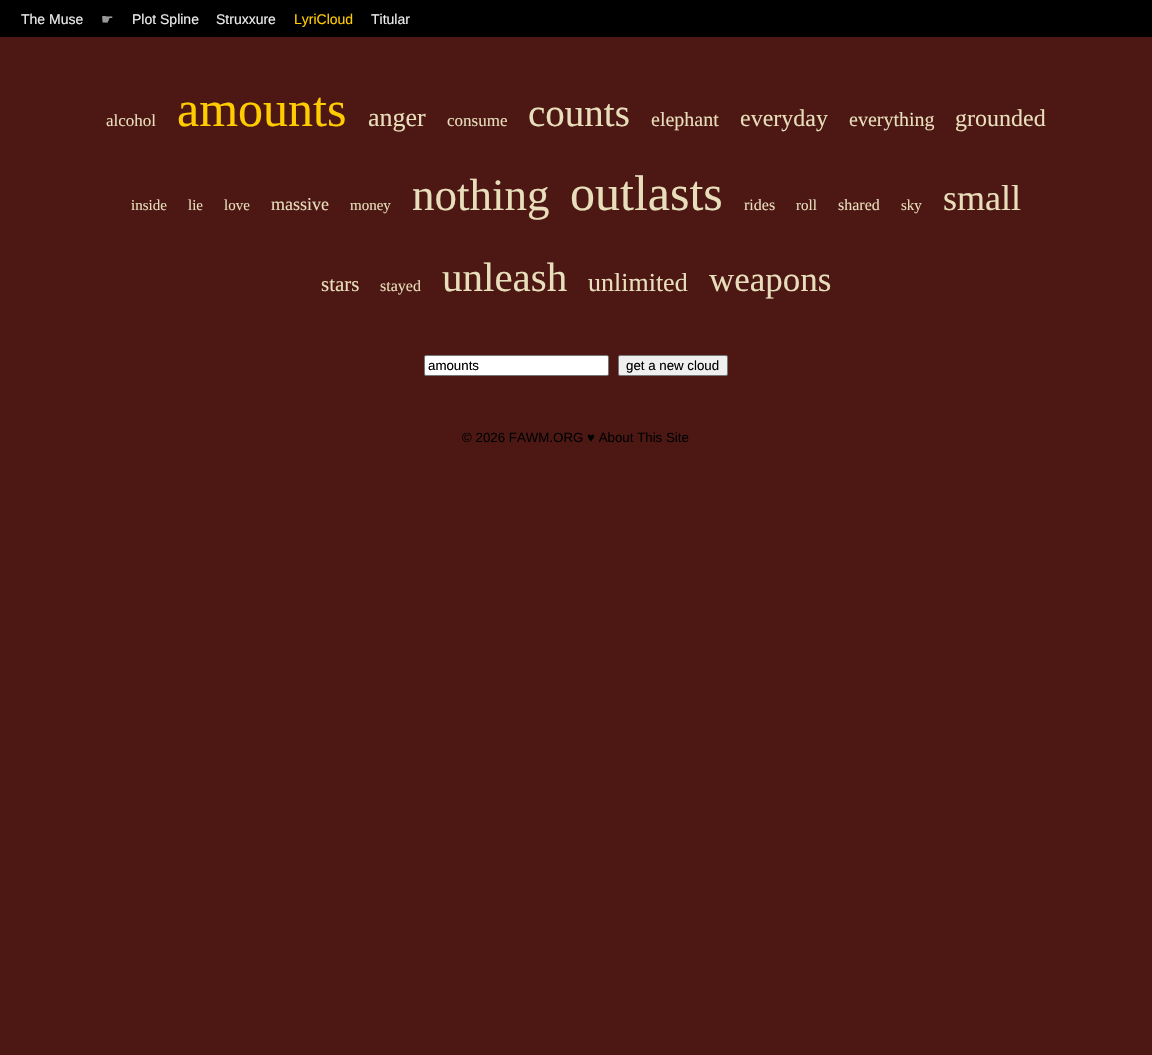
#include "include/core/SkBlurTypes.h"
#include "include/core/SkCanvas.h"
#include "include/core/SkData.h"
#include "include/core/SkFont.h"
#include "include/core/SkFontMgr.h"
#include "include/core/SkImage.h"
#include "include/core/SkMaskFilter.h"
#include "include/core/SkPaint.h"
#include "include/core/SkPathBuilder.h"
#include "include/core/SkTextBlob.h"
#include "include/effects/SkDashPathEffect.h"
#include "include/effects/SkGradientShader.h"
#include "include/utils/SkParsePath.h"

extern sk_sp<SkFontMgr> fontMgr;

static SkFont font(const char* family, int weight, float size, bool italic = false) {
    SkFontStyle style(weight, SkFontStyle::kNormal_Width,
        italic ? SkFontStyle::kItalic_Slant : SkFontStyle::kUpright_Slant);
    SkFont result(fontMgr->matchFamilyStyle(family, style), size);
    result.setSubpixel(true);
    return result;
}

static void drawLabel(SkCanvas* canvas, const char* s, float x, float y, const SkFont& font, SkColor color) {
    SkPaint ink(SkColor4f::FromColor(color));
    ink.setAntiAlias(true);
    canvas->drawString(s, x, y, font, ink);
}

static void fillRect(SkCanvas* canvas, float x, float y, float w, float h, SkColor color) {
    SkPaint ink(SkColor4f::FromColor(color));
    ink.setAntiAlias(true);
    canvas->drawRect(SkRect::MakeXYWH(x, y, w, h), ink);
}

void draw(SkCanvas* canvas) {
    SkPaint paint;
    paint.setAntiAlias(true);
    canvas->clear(0xFF4D1814);
    fillRect(canvas, 0, 0, 1152, 37, 0xFF000000);
    SkFont font1 = font("Liberation Sans", 400, 14);
    drawLabel(canvas, "The Muse", 21, 24, font1, 0xFFEEEEEE);
    SkFont font2 = font("DejaVu Sans", 400, 14);
    drawLabel(canvas, "☛", 101, 24, font2, 0xFF999999);
    drawLabel(canvas, "Plot Spline", 132, 24, font1, 0xFFEEEEEE);
    drawLabel(canvas, "Struxxure", 216, 24, font1, 0xFFEEEEEE);
    drawLabel(canvas, "LyriCloud", 294, 24, font1, 0xFFFFCC00);
    drawLabel(canvas, "Titular", 371, 24, font1, 0xFFEEEEEE);
    SkFont font3 = font("Liberation Serif", 400, 17);
    drawLabel(canvas, "alcohol", 106, 126, font3, 0xFFE8DEBB);
    SkFont font4 = font("Liberation Serif", 400, 50);
    drawLabel(canvas, "amounts", 177, 126, font4, 0xFFFFCC00);
    SkFont font5 = font("Liberation Serif", 400, 26);
    drawLabel(canvas, "anger", 368, 126, font5, 0xFFE8DEBB);
    drawLabel(canvas, "consume", 447, 126, font3, 0xFFE8DEBB);
    SkFont font6 = font("Liberation Serif", 400, 39);
    drawLabel(canvas, "counts", 528, 126, font6, 0xFFE8DEBB);
    SkFont font7 = font("Liberation Serif", 400, 20);
    drawLabel(canvas, "elephant", 651, 126, font7, 0xFFE8DEBB);
    SkFont font8 = font("Liberation Serif", 400, 24);
    drawLabel(canvas, "everyday", 740, 126, font8, 0xFFE8DEBB);
    drawLabel(canvas, "everything", 849, 126, font7, 0xFFE8DEBB);
    drawLabel(canvas, "grounded", 955, 126, font8, 0xFFE8DEBB);
    SkFont font9 = font("Liberation Serif", 400, 15);
    drawLabel(canvas, "inside", 131, 210, font9, 0xFFE8DEBB);
    drawLabel(canvas, "lie", 188, 210, font9, 0xFFE8DEBB);
    drawLabel(canvas, "love", 224, 210, font9, 0xFFE8DEBB);
    SkFont font10 = font("Liberation Serif", 400, 18);
    drawLabel(canvas, "massive", 271, 210, font10, 0xFFE8DEBB);
    drawLabel(canvas, "money", 350, 210, font9, 0xFFE8DEBB);
    SkFont font11 = font("Liberation Serif", 400, 45);
    drawLabel(canvas, "nothing", 412, 210, font11, 0xFFE8DEBB);
    drawLabel(canvas, "outlasts", 570, 210, font4, 0xFFE8DEBB);
    SkFont font12 = font("Liberation Serif", 400, 16);
    drawLabel(canvas, "rides", 744, 210, font12, 0xFFE8DEBB);
    drawLabel(canvas, "roll", 796, 210, font9, 0xFFE8DEBB);
    drawLabel(canvas, "shared", 838, 210, font12, 0xFFE8DEBB);
    drawLabel(canvas, "sky", 901, 210, font9, 0xFFE8DEBB);
    SkFont font13 = font("Liberation Serif", 400, 36);
    drawLabel(canvas, "small", 943, 210, font13, 0xFFE8DEBB);
    SkFont font14 = font("Liberation Serif", 400, 21);
    drawLabel(canvas, "stars", 321, 291, font14, 0xFFE8DEBB);
    drawLabel(canvas, "stayed", 380, 291, font12, 0xFFE8DEBB);
    SkFont font15 = font("Liberation Serif", 400, 41);
    drawLabel(canvas, "unleash", 442, 291, font15, 0xFFE8DEBB);
    drawLabel(canvas, "unlimited", 588, 291, font5, 0xFFE8DEBB);
    SkFont font16 = font("Liberation Serif", 400, 35);
    drawLabel(canvas, "weapons", 709, 291, font16, 0xFFE8DEBB);
    paint.setColor(0xFFFFFFFF);
    canvas->drawRoundRect(SkRect::MakeXYWH(424.5f, 355.5f, 184, 20), 1.5f, 1.5f, paint);
    paint.setStroke(true);
    paint.setStrokeWidth(1);
    paint.setColor(0xFF767676);
    canvas->drawRoundRect(SkRect::MakeXYWH(424.5f, 355.5f, 184, 20), 1.5f, 1.5f, paint);
    SkFont font17 = font("Liberation Sans", 400, 13.3f);
    drawLabel(canvas, "amounts", 428, 370, font17, 0xFF000000);
    paint.setStroke(false);
    paint.setColor(0xFFEFEFEF);
    canvas->drawRoundRect(SkRect::MakeXYWH(618.5f, 355.5f, 109, 20), 1.5f, 1.5f, paint);
    paint.setStroke(true);
    paint.setColor(0xFF767676);
    canvas->drawRoundRect(SkRect::MakeXYWH(618.5f, 355.5f, 109, 20), 1.5f, 1.5f, paint);
    drawLabel(canvas, "get a new cloud", 626, 370, font17, 0xFF000000);
    drawLabel(canvas, "© 2026 FAWM.ORG ♥ About This Site", 462, 442, font17, 0xFF000000);
}
